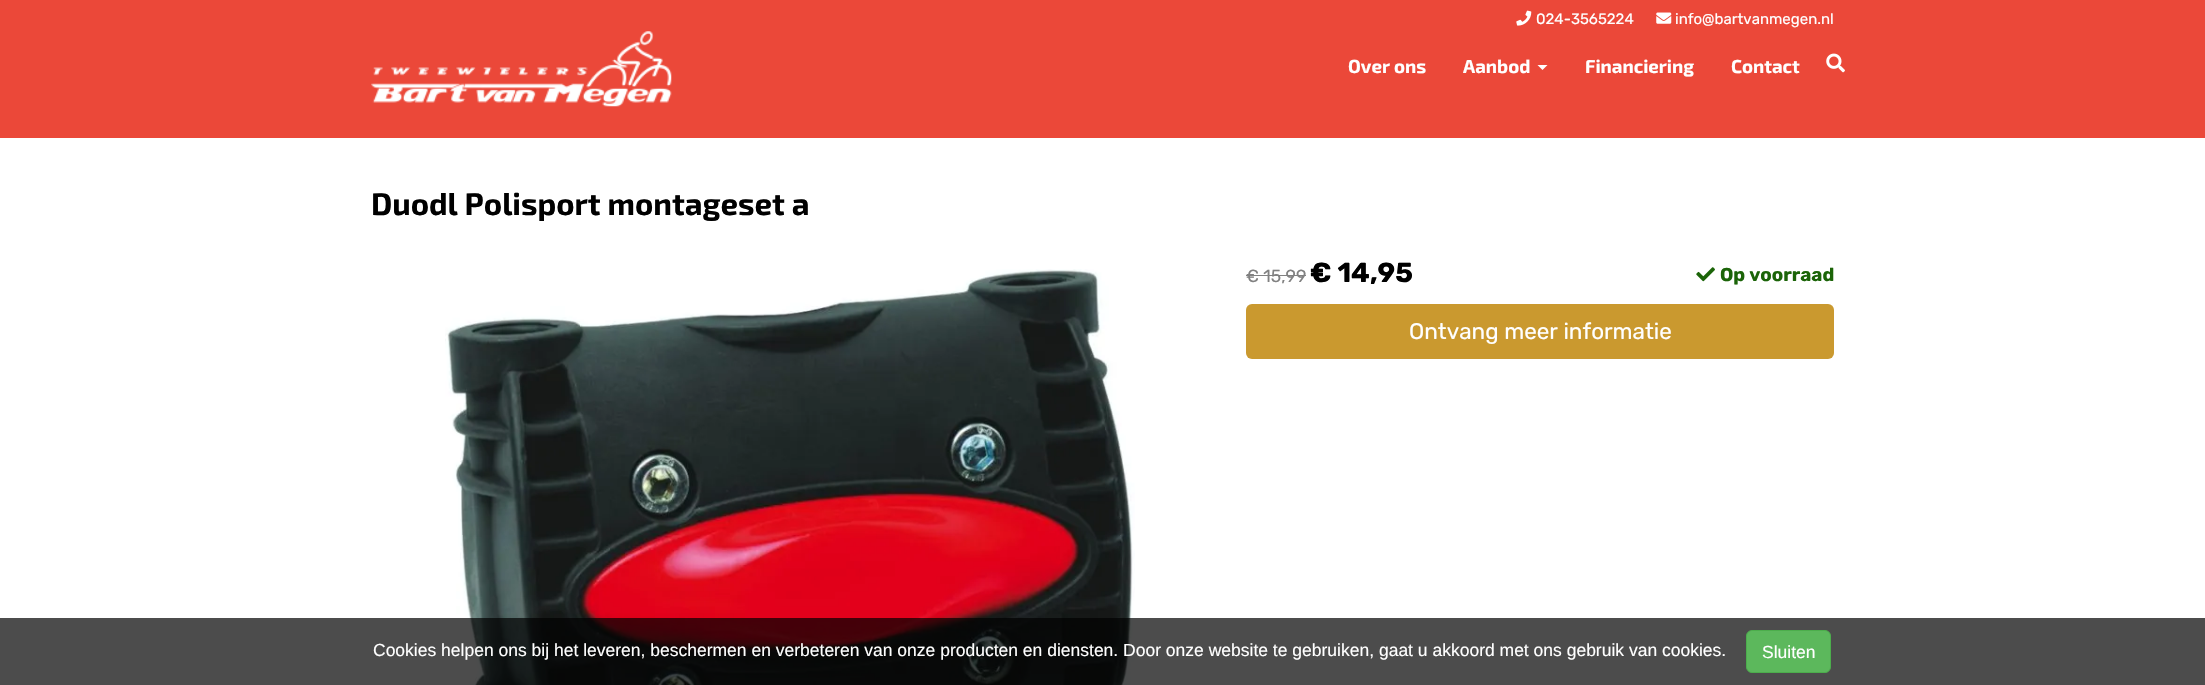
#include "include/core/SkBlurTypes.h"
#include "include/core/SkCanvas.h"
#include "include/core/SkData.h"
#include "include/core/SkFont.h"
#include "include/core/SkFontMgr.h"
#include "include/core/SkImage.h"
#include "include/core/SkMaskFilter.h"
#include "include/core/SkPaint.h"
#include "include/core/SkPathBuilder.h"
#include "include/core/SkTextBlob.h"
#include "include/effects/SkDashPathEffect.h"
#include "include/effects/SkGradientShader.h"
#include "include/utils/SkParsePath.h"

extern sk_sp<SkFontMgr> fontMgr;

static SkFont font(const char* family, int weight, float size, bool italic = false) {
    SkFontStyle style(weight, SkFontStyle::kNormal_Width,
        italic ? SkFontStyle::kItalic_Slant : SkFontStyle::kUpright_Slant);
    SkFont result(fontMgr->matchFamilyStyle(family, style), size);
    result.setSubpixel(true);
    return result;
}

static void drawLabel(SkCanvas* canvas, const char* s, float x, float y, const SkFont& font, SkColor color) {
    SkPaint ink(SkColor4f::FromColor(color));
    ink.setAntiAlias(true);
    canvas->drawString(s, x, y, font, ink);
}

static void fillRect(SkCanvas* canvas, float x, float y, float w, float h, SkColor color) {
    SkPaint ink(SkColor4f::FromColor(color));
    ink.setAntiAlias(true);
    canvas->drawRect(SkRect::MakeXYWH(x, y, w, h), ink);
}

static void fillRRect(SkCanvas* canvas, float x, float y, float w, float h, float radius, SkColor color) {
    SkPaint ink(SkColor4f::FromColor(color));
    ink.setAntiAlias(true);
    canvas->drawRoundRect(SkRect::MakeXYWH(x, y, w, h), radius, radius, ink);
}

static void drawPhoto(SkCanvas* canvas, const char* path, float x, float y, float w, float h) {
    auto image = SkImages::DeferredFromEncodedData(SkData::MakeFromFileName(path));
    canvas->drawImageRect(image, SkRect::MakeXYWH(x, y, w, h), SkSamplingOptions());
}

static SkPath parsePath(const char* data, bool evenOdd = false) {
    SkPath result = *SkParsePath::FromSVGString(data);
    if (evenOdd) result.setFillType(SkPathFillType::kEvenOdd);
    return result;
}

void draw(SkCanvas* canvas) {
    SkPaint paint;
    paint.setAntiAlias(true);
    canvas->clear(0xFFFFFFFF);
    fillRect(canvas, 0, 0, 2205, 138, 0xFFEB4839);
    drawPhoto(canvas, "assets/img1.png", 1516, 10, 16, 16);
    SkFont font1 = font("Rubik", 400, 15);
    drawLabel(canvas, "024-3565224", 1536, 24, font1, 0xFFFFFFFF);
    drawPhoto(canvas, "assets/img2.png", 1656, 12, 16, 12);
    drawLabel(canvas, "info@bartvanmegen.nl", 1675, 24, font1, 0xFFFFFFFF);
    drawPhoto(canvas, "assets/img3.png", 371, 31, 301, 76);
    SkFont font2 = font("Exo 2", 700, 18.75f);
    drawLabel(canvas, "Over ons", 1348, 73, font2, 0xFFFFFFFF);
    drawLabel(canvas, "Aanbod", 1463, 73, font2, 0xFFFFFFFF);
    paint.setColor(0xFFFFFFFF);
    canvas->drawPath(parsePath("M1537.5 65H1547.5L1542.5 70Z"), paint);
    drawLabel(canvas, "Financiering", 1585, 73, font2, 0xFFFFFFFF);
    drawLabel(canvas, "Contact", 1731, 73, font2, 0xFFFFFFFF);
    drawPhoto(canvas, "assets/img4.png", 1826, 53, 19, 20);
    SkFont font3 = font("Exo 2", 700, 31.25f);
    drawLabel(canvas, "Duodl Polisport montageset a", 371, 215, font3, 0xFF000000);
    drawPhoto(canvas, "assets/img5.png", 445, 269, 690, 416);
    SkFont font4 = font("Rubik", 400, 17.5f);
    drawLabel(canvas, "€ 15,99", 1246, 282, font4, 0xFF818181);
    fillRect(canvas, 1246, 275, 60, 1, 0xFF818181);
    SkFont font5 = font("Rubik", 700, 27.5f);
    drawLabel(canvas, "€ 14,95", 1310, 282, font5, 0xFF000000);
    drawPhoto(canvas, "assets/img6.png", 1696, 267, 19, 15);
    SkFont font6 = font("Rubik", 700, 18.75f);
    drawLabel(canvas, "Op voorraad", 1720, 281, font6, 0xFF1B6408);
    fillRRect(canvas, 1246, 304, 588, 55, 6, 0xFFCA992F);
    SkFont font7 = font("Rubik", 400, 22.5f);
    drawLabel(canvas, "Ontvang meer informatie", 1409, 339, font7, 0xFFFFFFFF);
    fillRect(canvas, 0, 618, 2205, 67, 0xB3000000);
    SkFont font8 = font("Liberation Sans", 400, 17.5f);
    drawLabel(canvas, "Cookies helpen ons bij het leveren, beschermen en verbeteren van onze producten en diensten. Door onze website te gebruiken, gaat u akkoord met ons gebruik van cookies.", 373, 656, font8, 0xFFFFFFFF);
    paint.setColor(0xFF5CB85C);
    canvas->drawRoundRect(SkRect::MakeXYWH(1746.5f, 630.5f, 84, 42), 5.5f, 5.5f, paint);
    paint.setStroke(true);
    paint.setStrokeWidth(1);
    paint.setColor(0xFF4CAE4C);
    canvas->drawRoundRect(SkRect::MakeXYWH(1746.5f, 630.5f, 84, 42), 5.5f, 5.5f, paint);
    drawLabel(canvas, "Sluiten", 1762, 658, font8, 0xFFFFFFFF);
}
